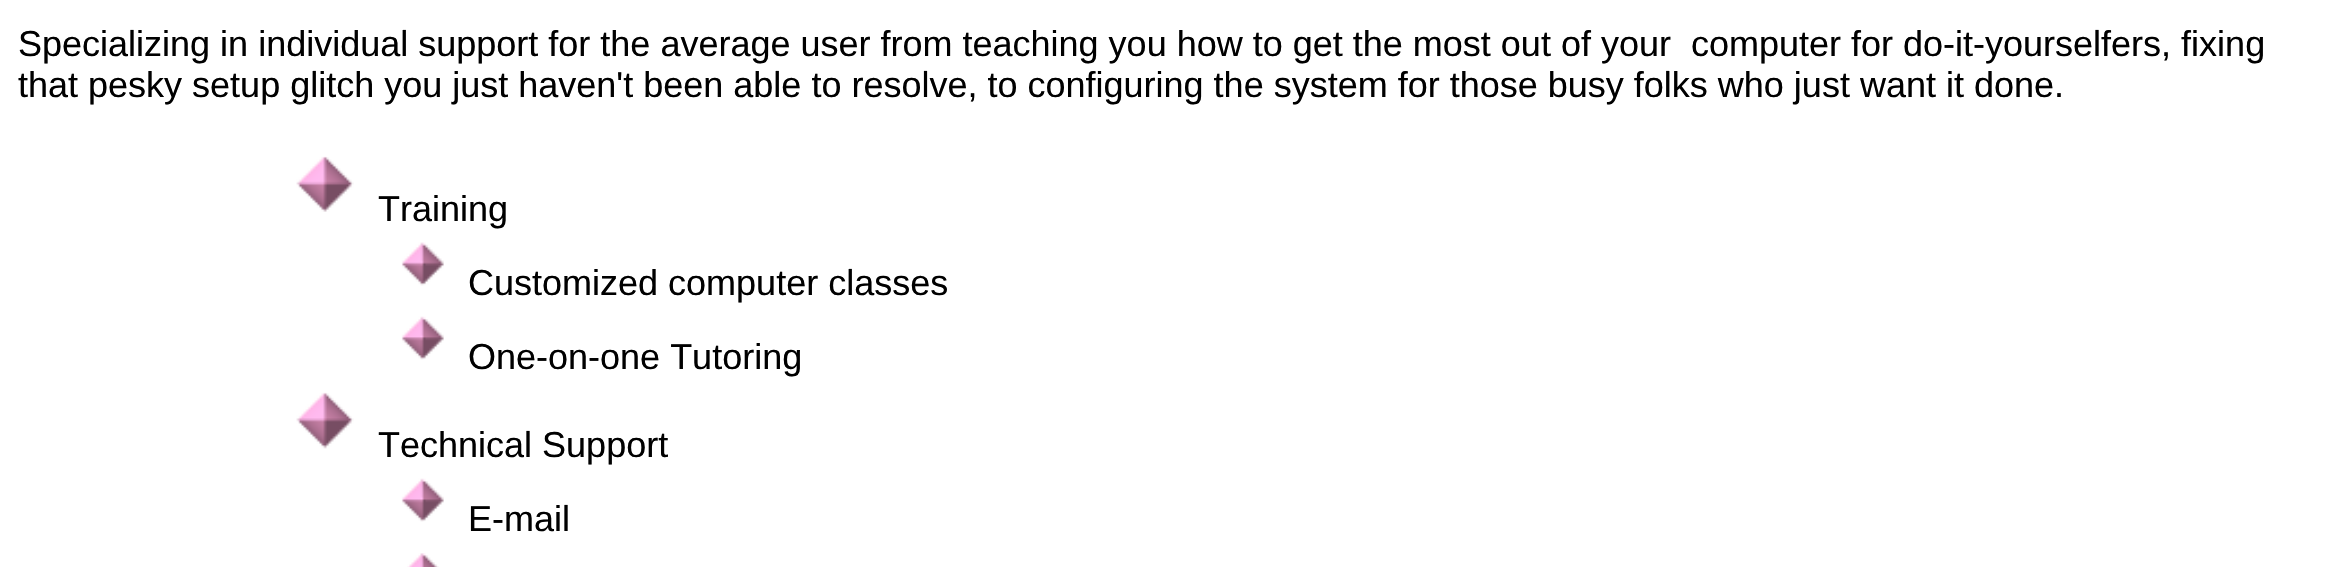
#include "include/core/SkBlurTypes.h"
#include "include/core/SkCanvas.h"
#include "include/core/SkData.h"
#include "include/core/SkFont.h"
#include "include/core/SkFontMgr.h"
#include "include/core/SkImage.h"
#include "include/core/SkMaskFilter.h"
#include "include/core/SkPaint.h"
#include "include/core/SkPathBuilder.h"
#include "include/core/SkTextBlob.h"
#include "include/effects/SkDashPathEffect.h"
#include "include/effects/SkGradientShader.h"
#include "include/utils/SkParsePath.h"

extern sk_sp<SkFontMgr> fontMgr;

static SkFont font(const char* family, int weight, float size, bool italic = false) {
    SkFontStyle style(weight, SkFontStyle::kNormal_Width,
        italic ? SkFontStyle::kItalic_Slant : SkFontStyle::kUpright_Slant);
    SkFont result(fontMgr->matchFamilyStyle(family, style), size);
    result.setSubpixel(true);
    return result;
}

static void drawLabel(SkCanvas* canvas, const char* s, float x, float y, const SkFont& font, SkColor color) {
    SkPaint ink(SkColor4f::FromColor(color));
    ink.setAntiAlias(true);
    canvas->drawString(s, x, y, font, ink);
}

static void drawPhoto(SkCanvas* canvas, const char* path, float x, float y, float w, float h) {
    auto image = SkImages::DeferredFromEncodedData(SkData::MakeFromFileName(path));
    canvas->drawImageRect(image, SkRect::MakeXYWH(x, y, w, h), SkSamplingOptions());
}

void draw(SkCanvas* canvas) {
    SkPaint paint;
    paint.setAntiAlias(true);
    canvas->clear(0xFFFFFFFF);
    SkFont font1 = font("Liberation Sans", 400, 36);
    drawLabel(canvas, "Specializing in individual support for the average user from teaching you how to get the most out of your  computer for do-it-yourselfers, fixing", 18, 56, font1, 0xFF000000);
    drawLabel(canvas, "that pesky setup glitch you just haven't been able to resolve, to configuring the system for those busy folks who just want it done.", 18, 97, font1, 0xFF000000);
    drawPhoto(canvas, "assets/img1.png", 296, 156, 58, 56);
    drawLabel(canvas, "Training", 378, 221, font1, 0xFF000000);
    drawPhoto(canvas, "assets/img2.png", 401, 242, 43, 44);
    drawLabel(canvas, "Customized computer classes", 468, 295, font1, 0xFF000000);
    drawPhoto(canvas, "assets/img3.png", 401, 316, 43, 44);
    drawLabel(canvas, "One-on-one Tutoring", 468, 369, font1, 0xFF000000);
    drawPhoto(canvas, "assets/img4.png", 296, 392, 58, 57);
    drawLabel(canvas, "Technical Support", 378, 457, font1, 0xFF000000);
    drawPhoto(canvas, "assets/img5.png", 401, 478, 43, 44);
    drawLabel(canvas, "E-mail", 468, 531, font1, 0xFF000000);
    drawPhoto(canvas, "assets/img6.png", 407, 553, 32, 14);
}
